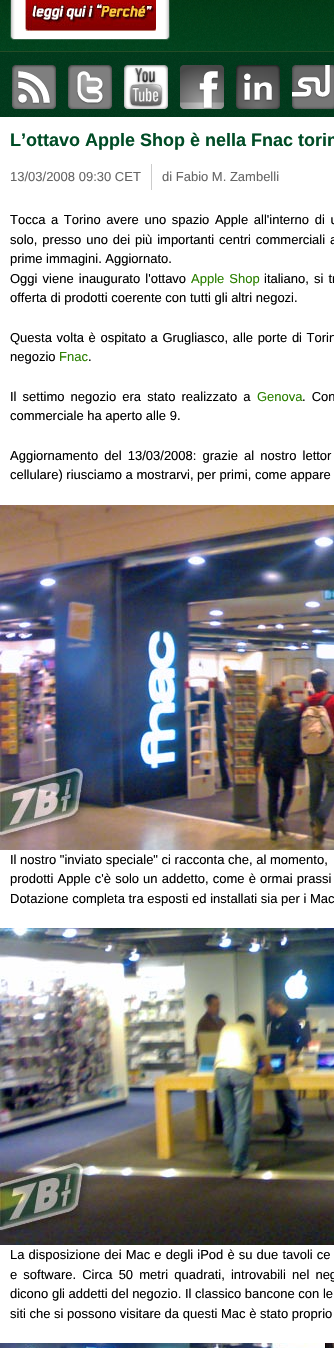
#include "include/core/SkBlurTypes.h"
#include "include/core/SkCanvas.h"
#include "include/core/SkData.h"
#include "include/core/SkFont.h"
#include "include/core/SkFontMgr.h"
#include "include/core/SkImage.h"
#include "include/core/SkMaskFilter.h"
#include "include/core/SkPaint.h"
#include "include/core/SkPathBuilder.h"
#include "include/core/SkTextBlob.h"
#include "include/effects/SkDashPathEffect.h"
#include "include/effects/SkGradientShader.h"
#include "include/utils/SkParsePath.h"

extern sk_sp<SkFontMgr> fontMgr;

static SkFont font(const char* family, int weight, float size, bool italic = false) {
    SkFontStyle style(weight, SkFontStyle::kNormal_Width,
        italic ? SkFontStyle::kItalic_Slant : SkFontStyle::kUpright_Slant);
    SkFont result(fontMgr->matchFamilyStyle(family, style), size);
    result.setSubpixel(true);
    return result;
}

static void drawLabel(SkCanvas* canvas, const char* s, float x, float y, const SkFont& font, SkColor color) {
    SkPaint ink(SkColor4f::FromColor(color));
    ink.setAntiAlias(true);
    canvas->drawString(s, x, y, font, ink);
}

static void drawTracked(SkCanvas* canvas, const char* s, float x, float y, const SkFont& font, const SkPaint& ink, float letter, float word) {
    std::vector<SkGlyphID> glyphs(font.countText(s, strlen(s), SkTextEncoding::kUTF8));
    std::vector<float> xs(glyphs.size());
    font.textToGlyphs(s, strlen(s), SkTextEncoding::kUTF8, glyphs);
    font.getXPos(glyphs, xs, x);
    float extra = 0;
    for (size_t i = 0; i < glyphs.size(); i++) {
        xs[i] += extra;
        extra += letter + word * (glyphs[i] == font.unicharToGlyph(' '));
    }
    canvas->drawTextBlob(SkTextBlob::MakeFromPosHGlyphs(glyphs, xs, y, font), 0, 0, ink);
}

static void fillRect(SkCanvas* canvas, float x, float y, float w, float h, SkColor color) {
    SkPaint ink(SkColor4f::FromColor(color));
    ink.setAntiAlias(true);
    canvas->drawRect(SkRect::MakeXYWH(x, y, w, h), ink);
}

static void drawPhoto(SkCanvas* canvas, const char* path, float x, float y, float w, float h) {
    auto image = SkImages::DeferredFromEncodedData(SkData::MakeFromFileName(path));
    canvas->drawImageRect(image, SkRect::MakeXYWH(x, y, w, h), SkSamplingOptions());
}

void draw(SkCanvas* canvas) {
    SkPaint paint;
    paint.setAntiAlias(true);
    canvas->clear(0xFFFFFFFF);
    drawPhoto(canvas, "assets/img1.png", 0, 0, 334, 51);
    drawPhoto(canvas, "assets/img2.png", 10, 0, 160, 40);
    drawPhoto(canvas, "assets/img3.png", 25, 0, 131, 31);
    fillRect(canvas, 0, 51, 334, 1, 0xFF254C26);
    drawPhoto(canvas, "assets/img4.png", 0, 52, 334, 65);
    drawPhoto(canvas, "assets/img5.png", 12, 65, 44, 44);
    drawPhoto(canvas, "assets/img6.png", 68, 65, 44, 44);
    drawPhoto(canvas, "assets/img7.png", 124, 65, 44, 44);
    drawPhoto(canvas, "assets/img8.png", 180, 65, 44, 44);
    drawPhoto(canvas, "assets/img9.png", 236, 65, 44, 44);
    drawPhoto(canvas, "assets/img10.png", 292, 65, 42, 44);
    SkFont font1 = font("Liberation Sans", 700, 18);
    drawLabel(canvas, "L’ottavo Apple Shop è nella Fnac torin", 10, 146, font1, 0xFF004C26);
    fillRect(canvas, 151, 164, 1, 26, 0xFFCCCCCC);
    SkFont font2 = font("Liberation Sans", 400, 13);
    drawLabel(canvas, "13/03/2008 09:30 CET", 10, 181, font2, 0xFF666666);
    drawLabel(canvas, "di Fabio M. Zambelli", 162, 181, font2, 0xFF666666);
    paint.setColor(0xFF000000);
    drawTracked(canvas, "Tocca a Torino avere uno spazio Apple all'interno di u", 10, 224, font2, paint, 0, 2);
    drawTracked(canvas, "solo, presso uno dei più importanti centri commerciali a", 10, 244, font2, paint, 0, 1.25f);
    drawLabel(canvas, "prime immagini. Aggiornato.", 10, 263, font2, 0xFF000000);
    drawTracked(canvas, "Oggi viene inaugurato l'ottavo", 10, 283, font2, paint, 0, 1.5f);
    paint.setColor(0xFF2A7F00);
    drawTracked(canvas, "Apple Shop", 191, 283, font2, paint, 0, 1.5f);
    paint.setColor(0xFF000000);
    drawTracked(canvas, "italiano, si tr", 264, 283, font2, paint, 0, 1.5f);
    drawLabel(canvas, "offerta di prodotti coerente con tutti gli altri negozi.", 10, 302, font2, 0xFF000000);
    drawTracked(canvas, "Questa volta è ospitato a Grugliasco, alle porte di Torin", 10, 342, font2, paint, 0, 1);
    drawLabel(canvas, "negozio", 10, 361, font2, 0xFF000000);
    drawLabel(canvas, "Fnac", 59, 361, font2, 0xFF2A7F00);
    drawLabel(canvas, ".", 88, 361, font2, 0xFF000000);
    drawTracked(canvas, "Il settimo negozio era stato realizzato a", 10, 401, font2, paint, 0, 2.5f);
    drawLabel(canvas, "Genova", 257, 401, font2, 0xFF2A7F00);
    drawTracked(canvas, ". Con", 302, 401, font2, paint, 0, 2.5f);
    drawLabel(canvas, "commerciale ha aperto alle 9.", 10, 420, font2, 0xFF000000);
    drawTracked(canvas, "Aggiornamento del 13/03/2008: grazie al nostro lettor", 10, 460, font2, paint, 0, 2.5f);
    drawLabel(canvas, "cellulare) riusciamo a mostrarvi, per primi, come appare", 10, 479, font2, 0xFF000000);
    drawPhoto(canvas, "assets/img11.png", 0, 505, 334, 345);
    drawLabel(canvas, "Il nostro \"inviato speciale\" ci racconta che, al momento,", 10, 864, font2, 0xFF000000);
    drawTracked(canvas, "prodotti Apple c'è solo un addetto, come è ormai prassi", 10, 883, font2, paint, 0, 0.5f);
    drawLabel(canvas, "Dotazione completa tra esposti ed installati sia per i Mac", 10, 903, font2, 0xFF000000);
    drawPhoto(canvas, "assets/img12.png", 0, 928, 334, 317);
    drawTracked(canvas, "La disposizione dei Mac e degli iPod è su due tavoli ce", 10, 1259, font2, paint, 0, 0.5f);
    drawTracked(canvas, "e software. Circa 50 metri quadrati, introvabili nel neg", 10, 1279, font2, paint, 0, 2.5f);
    drawLabel(canvas, "dicono gli addetti del negozio. Il classico bancone con le", 10, 1298, font2, 0xFF000000);
    drawLabel(canvas, "siti che si possono visitare da questi Mac è stato proprio", 10, 1318, font2, 0xFF000000);
    drawPhoto(canvas, "assets/img13.png", 0, 1343, 334, 5);
}
